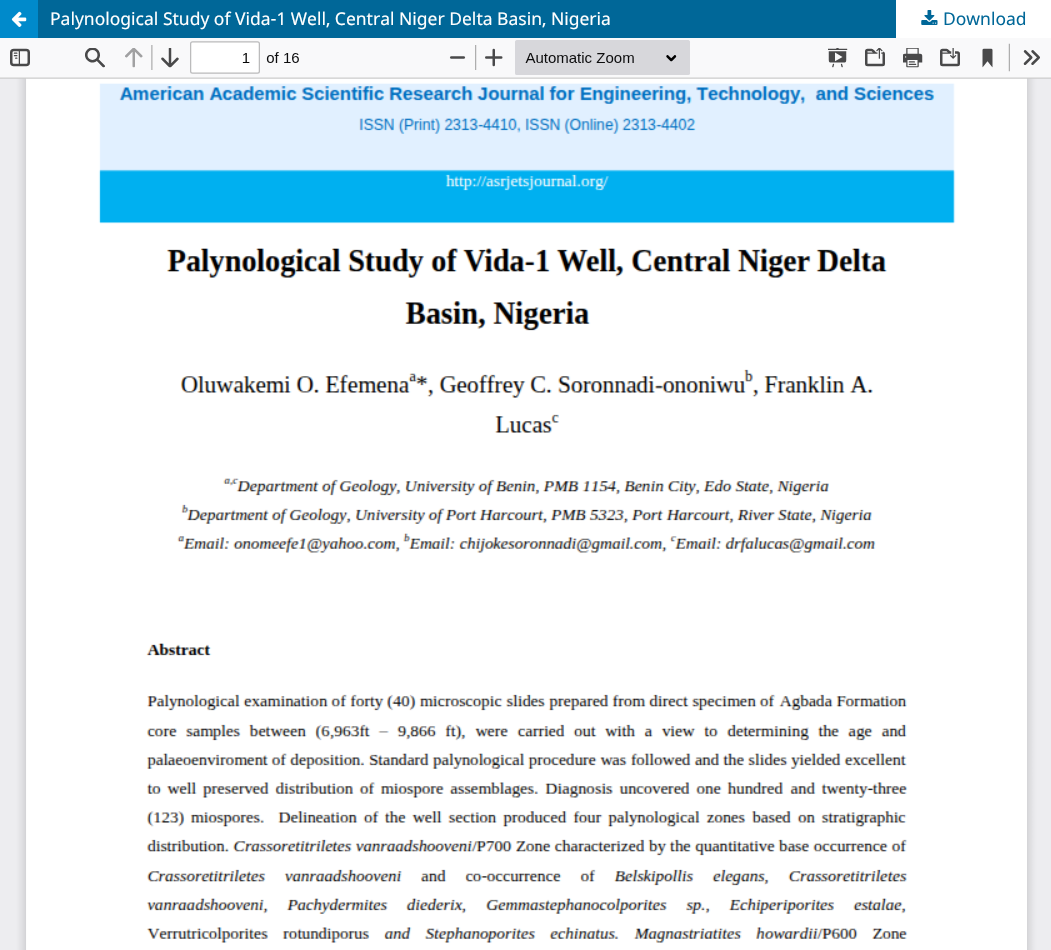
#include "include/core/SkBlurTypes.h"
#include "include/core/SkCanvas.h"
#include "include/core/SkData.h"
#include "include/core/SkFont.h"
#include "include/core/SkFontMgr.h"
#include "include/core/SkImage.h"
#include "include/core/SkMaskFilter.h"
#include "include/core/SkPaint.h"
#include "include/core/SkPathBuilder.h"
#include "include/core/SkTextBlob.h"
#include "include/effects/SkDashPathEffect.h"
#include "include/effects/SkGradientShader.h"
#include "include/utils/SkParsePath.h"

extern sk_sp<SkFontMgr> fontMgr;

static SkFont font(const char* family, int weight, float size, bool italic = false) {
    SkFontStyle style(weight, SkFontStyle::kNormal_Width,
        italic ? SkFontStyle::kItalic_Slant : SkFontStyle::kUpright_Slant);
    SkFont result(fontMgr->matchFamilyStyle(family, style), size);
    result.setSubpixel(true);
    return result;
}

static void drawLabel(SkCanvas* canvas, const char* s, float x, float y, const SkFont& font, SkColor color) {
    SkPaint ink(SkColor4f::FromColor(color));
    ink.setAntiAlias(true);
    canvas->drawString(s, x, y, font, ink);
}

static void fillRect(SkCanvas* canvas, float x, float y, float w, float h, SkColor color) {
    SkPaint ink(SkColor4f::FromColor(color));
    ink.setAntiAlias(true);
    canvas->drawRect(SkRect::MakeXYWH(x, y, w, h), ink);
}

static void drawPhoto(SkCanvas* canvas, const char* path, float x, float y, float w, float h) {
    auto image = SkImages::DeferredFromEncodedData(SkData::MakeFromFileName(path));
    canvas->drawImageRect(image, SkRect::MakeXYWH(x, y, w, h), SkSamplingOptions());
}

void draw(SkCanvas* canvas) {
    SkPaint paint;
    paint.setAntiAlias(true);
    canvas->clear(0xFFFFFFFF);
    fillRect(canvas, 38, 0, 858, 38, 0xFF006798);
    fillRect(canvas, 0, 0, 38, 38, 0xFF008ACB);
    drawPhoto(canvas, "assets/img1.png", 11, 11, 16, 16);
    SkFont font1 = font("Noto Sans", 400, 17.5f);
    drawLabel(canvas, "Palynological Study of Vida-1 Well, Central Niger Delta Basin, Nigeria", 50, 25, font1, 0xFFFFFFFF);
    drawPhoto(canvas, "assets/img2.png", 921, 10, 17, 15);
    drawLabel(canvas, "Download", 943, 25, font1, 0xFF006798);
    drawPhoto(canvas, "assets/img3.png", 0, 38, 1051, 912);
}
